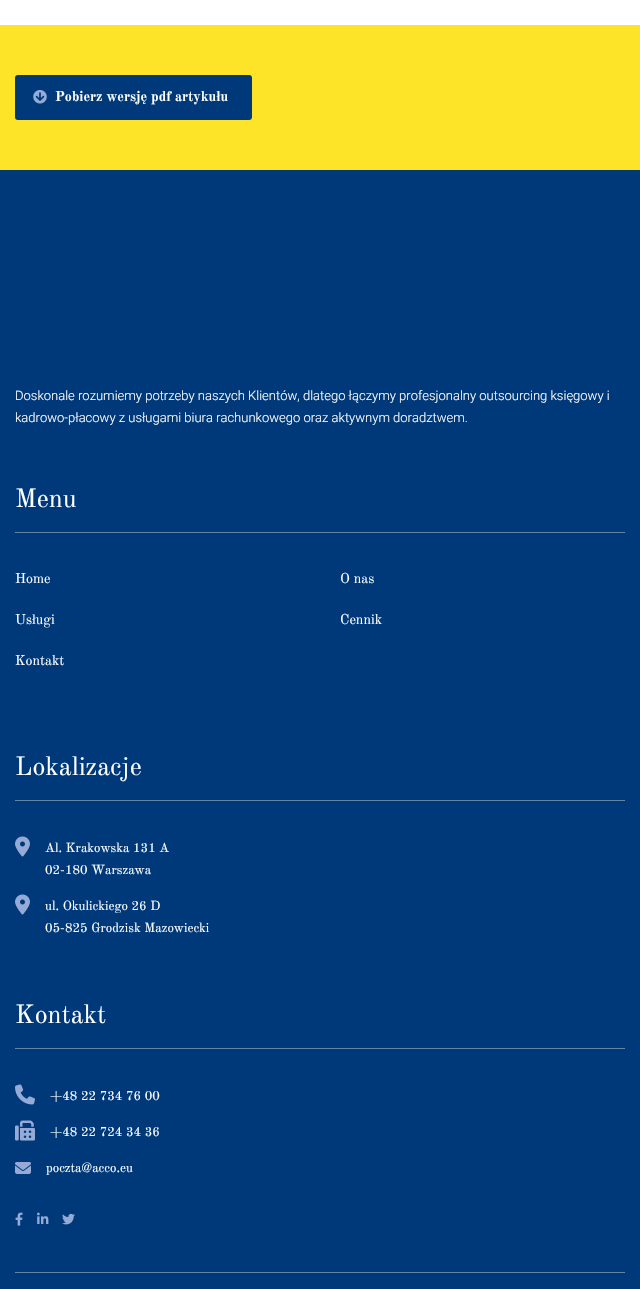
#include "include/core/SkBlurTypes.h"
#include "include/core/SkCanvas.h"
#include "include/core/SkData.h"
#include "include/core/SkFont.h"
#include "include/core/SkFontMgr.h"
#include "include/core/SkImage.h"
#include "include/core/SkMaskFilter.h"
#include "include/core/SkPaint.h"
#include "include/core/SkPathBuilder.h"
#include "include/core/SkTextBlob.h"
#include "include/effects/SkDashPathEffect.h"
#include "include/effects/SkGradientShader.h"
#include "include/utils/SkParsePath.h"

extern sk_sp<SkFontMgr> fontMgr;

static SkFont font(const char* family, int weight, float size, bool italic = false) {
    SkFontStyle style(weight, SkFontStyle::kNormal_Width,
        italic ? SkFontStyle::kItalic_Slant : SkFontStyle::kUpright_Slant);
    SkFont result(fontMgr->matchFamilyStyle(family, style), size);
    result.setSubpixel(true);
    return result;
}

static void drawLabel(SkCanvas* canvas, const char* s, float x, float y, const SkFont& font, SkColor color) {
    SkPaint ink(SkColor4f::FromColor(color));
    ink.setAntiAlias(true);
    canvas->drawString(s, x, y, font, ink);
}

static void fillRect(SkCanvas* canvas, float x, float y, float w, float h, SkColor color) {
    SkPaint ink(SkColor4f::FromColor(color));
    ink.setAntiAlias(true);
    canvas->drawRect(SkRect::MakeXYWH(x, y, w, h), ink);
}

static void drawPhoto(SkCanvas* canvas, const char* path, float x, float y, float w, float h) {
    auto image = SkImages::DeferredFromEncodedData(SkData::MakeFromFileName(path));
    canvas->drawImageRect(image, SkRect::MakeXYWH(x, y, w, h), SkSamplingOptions());
}

void draw(SkCanvas* canvas) {
    SkPaint paint;
    paint.setAntiAlias(true);
    canvas->clear(0xFFFFFFFF);
    fillRect(canvas, 0, 25, 640, 145, 0xFFFDE428);
    paint.setColor(0xFF003979);
    canvas->drawRoundRect(SkRect::MakeXYWH(16.5f, 76.5f, 234, 42), 1.5f, 1.5f, paint);
    paint.setStroke(true);
    paint.setStrokeWidth(3);
    canvas->drawRoundRect(SkRect::MakeXYWH(16.5f, 76.5f, 234, 42), 1.5f, 1.5f, paint);
    drawPhoto(canvas, "assets/img1.png", 33, 90, 14, 14);
    SkFont font1 = font("Old Standard TT", 700, 14);
    drawLabel(canvas, "Pobierz wersję pdf artykułu", 55, 101, font1, 0xFFFFFFFF);
    fillRect(canvas, 0, 170, 640, 1119, 0xFF003979);
    SkFont font2 = font("Roboto", 300, 13);
    drawLabel(canvas, "Doskonale rozumiemy potrzeby naszych Klientów, dlatego łączymy profesjonalny outsourcing księgowy i", 15, 400, font2, 0xFFFFFFFF);
    drawLabel(canvas, "kadrowo-płacowy z usługami biura rachunkowego oraz aktywnym doradztwem.", 15, 422, font2, 0xFFFFFFFF);
    fillRect(canvas, 15, 532, 610, 1, 0xFF6683A3);
    SkFont font3 = font("Old Standard TT", 400, 26);
    drawLabel(canvas, "Menu", 15, 507, font3, 0xFFFFFFFF);
    SkFont font4 = font("Old Standard TT", 400, 14);
    drawLabel(canvas, "Home", 15, 583, font4, 0xFFFFFFFF);
    drawLabel(canvas, "O nas", 340, 583, font4, 0xFFFFFFFF);
    drawLabel(canvas, "Usługi", 15, 624, font4, 0xFFFFFFFF);
    drawLabel(canvas, "Cennik", 340, 624, font4, 0xFFFFFFFF);
    drawLabel(canvas, "Kontakt", 15, 665, font4, 0xFFFFFFFF);
    fillRect(canvas, 15, 800, 610, 1, 0xFF6683A3);
    drawLabel(canvas, "Lokalizacje", 15, 775, font3, 0xFFFFFFFF);
    drawPhoto(canvas, "assets/img2.png", 15, 836, 15, 21);
    SkFont font5 = font("Old Standard TT", 400, 13);
    drawLabel(canvas, "Al. Krakowska 131 A", 45, 852, font5, 0xFFFFFFFF);
    drawLabel(canvas, "02-180 Warszawa", 45, 874, font5, 0xFFFFFFFF);
    drawPhoto(canvas, "assets/img2.png", 15, 894, 15, 21);
    drawLabel(canvas, "ul. Okulickiego 26 D", 45, 910, font5, 0xFFFFFFFF);
    drawLabel(canvas, "05-825 Grodzisk Mazowiecki", 45, 932, font5, 0xFFFFFFFF);
    fillRect(canvas, 15, 1048, 610, 1, 0xFF6683A3);
    drawLabel(canvas, "Kontakt", 15, 1023, font3, 0xFFFFFFFF);
    drawPhoto(canvas, "assets/img3.png", 15, 1084, 20, 21);
    drawLabel(canvas, "+48 22 734 76 00", 50, 1100, font5, 0xFFFFFFFF);
    drawPhoto(canvas, "assets/img4.png", 15, 1120, 20, 21);
    drawLabel(canvas, "+48 22 724 34 36", 50, 1136, font5, 0xFFFFFFFF);
    drawPhoto(canvas, "assets/img5.png", 15, 1162, 16, 12);
    drawLabel(canvas, "poczta@acco.eu", 46, 1172, font5, 0xFFFFFFFF);
    drawPhoto(canvas, "assets/img6.png", 15, 1212, 8, 14);
    drawPhoto(canvas, "assets/img7.png", 37, 1212, 12, 12);
    drawPhoto(canvas, "assets/img8.png", 62, 1213, 13, 12);
    fillRect(canvas, 15, 1272, 610, 1, 0xFF6683A3);
}
